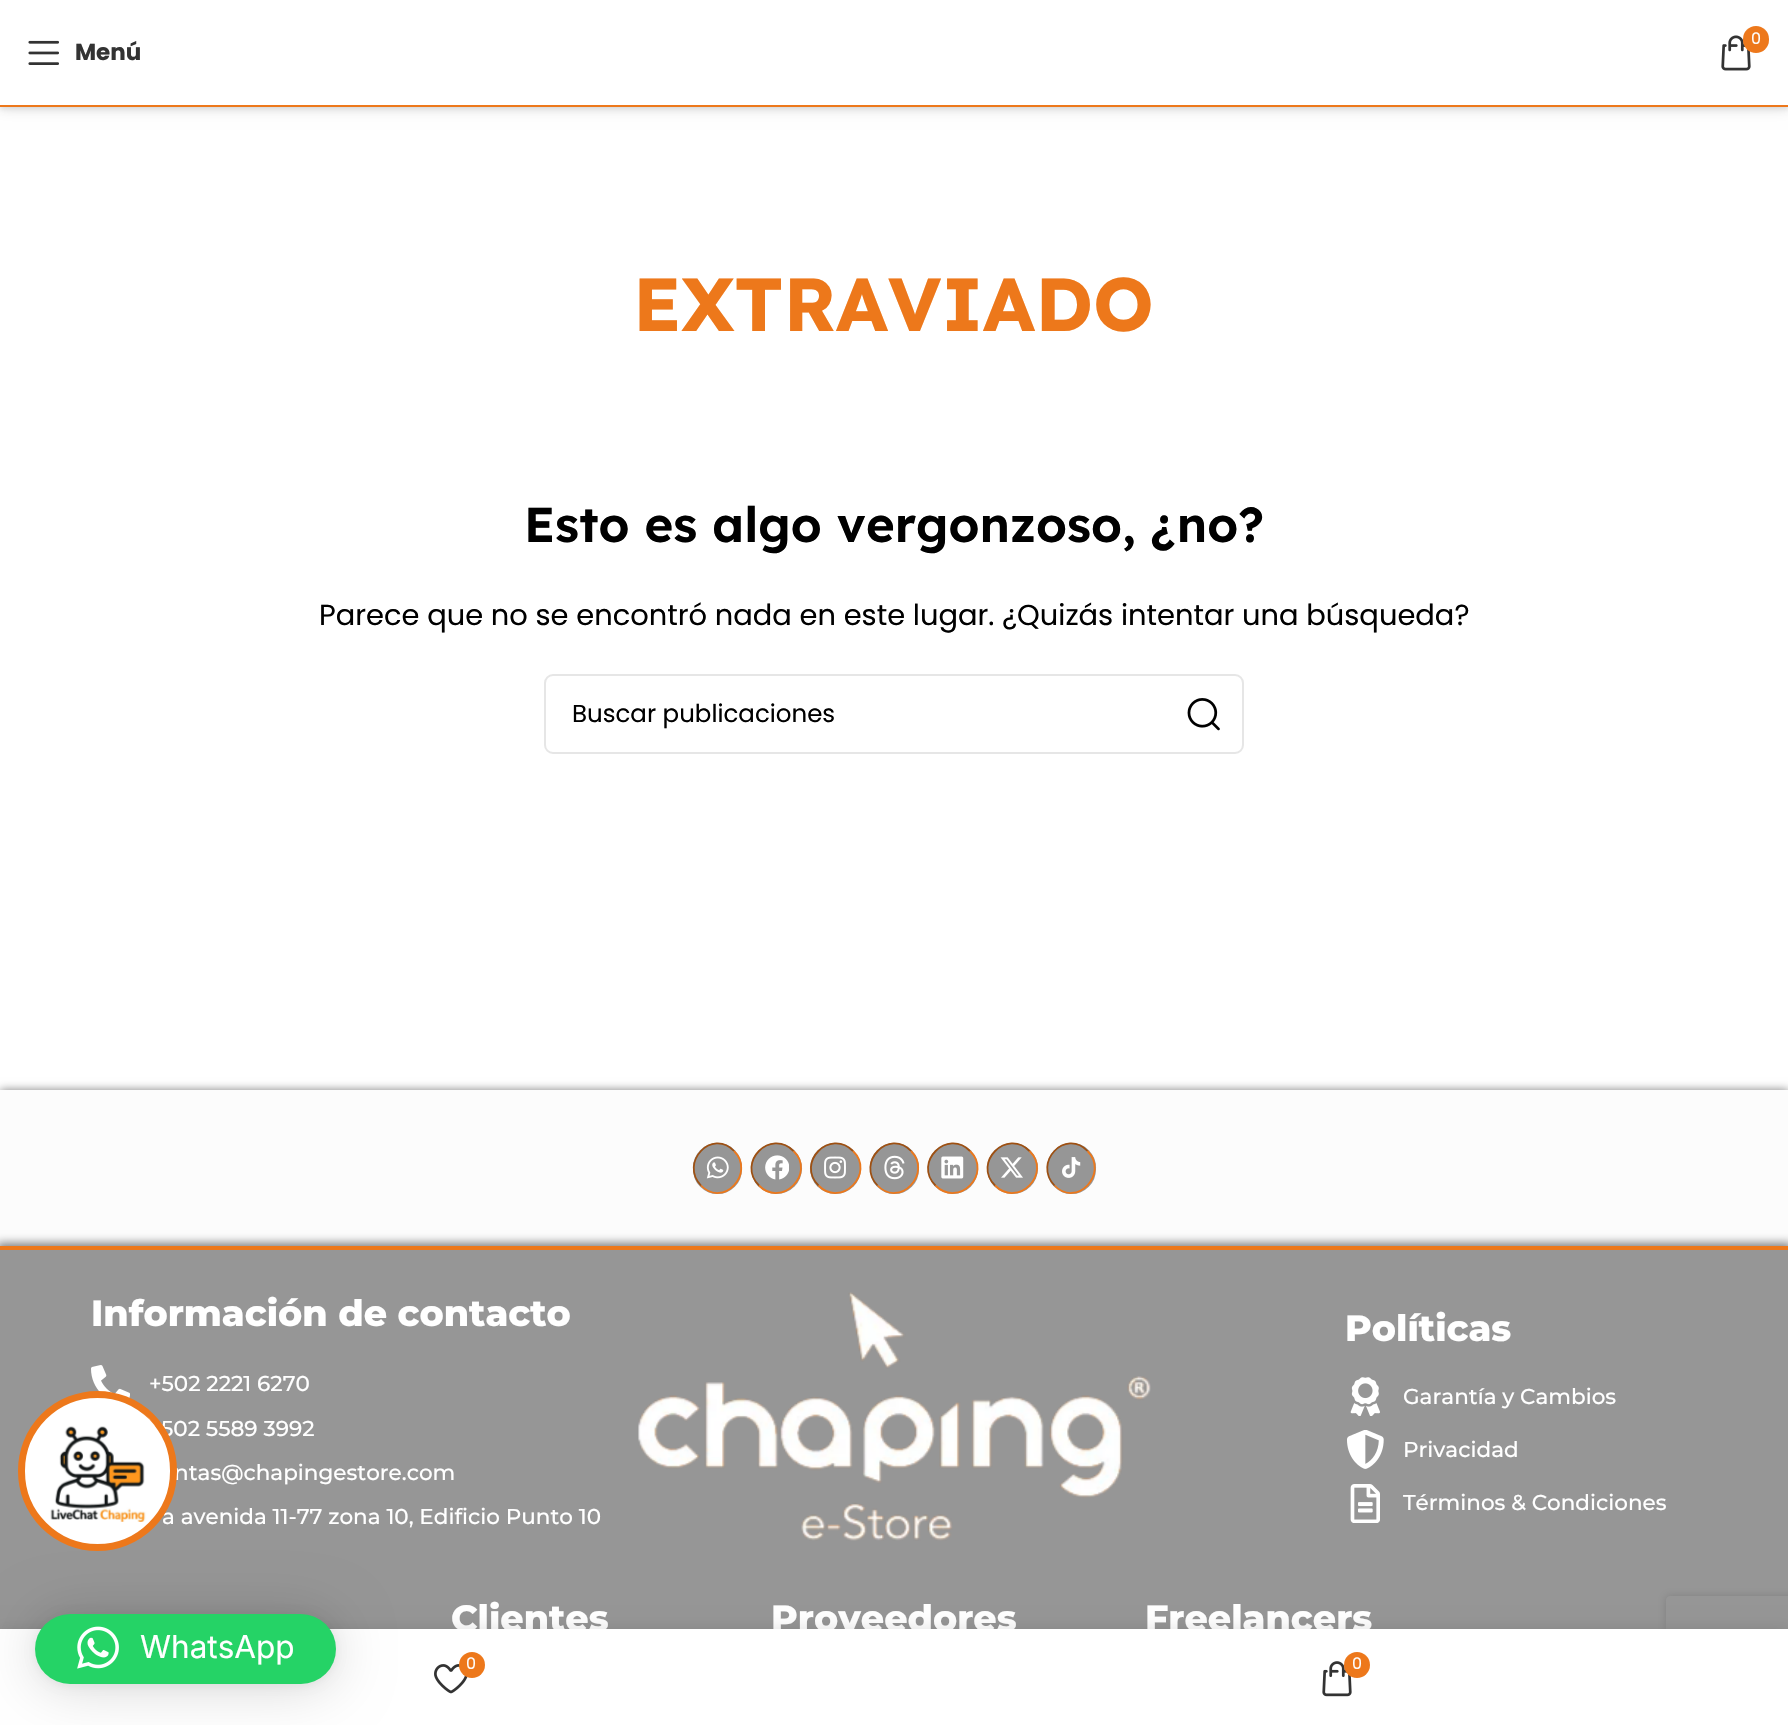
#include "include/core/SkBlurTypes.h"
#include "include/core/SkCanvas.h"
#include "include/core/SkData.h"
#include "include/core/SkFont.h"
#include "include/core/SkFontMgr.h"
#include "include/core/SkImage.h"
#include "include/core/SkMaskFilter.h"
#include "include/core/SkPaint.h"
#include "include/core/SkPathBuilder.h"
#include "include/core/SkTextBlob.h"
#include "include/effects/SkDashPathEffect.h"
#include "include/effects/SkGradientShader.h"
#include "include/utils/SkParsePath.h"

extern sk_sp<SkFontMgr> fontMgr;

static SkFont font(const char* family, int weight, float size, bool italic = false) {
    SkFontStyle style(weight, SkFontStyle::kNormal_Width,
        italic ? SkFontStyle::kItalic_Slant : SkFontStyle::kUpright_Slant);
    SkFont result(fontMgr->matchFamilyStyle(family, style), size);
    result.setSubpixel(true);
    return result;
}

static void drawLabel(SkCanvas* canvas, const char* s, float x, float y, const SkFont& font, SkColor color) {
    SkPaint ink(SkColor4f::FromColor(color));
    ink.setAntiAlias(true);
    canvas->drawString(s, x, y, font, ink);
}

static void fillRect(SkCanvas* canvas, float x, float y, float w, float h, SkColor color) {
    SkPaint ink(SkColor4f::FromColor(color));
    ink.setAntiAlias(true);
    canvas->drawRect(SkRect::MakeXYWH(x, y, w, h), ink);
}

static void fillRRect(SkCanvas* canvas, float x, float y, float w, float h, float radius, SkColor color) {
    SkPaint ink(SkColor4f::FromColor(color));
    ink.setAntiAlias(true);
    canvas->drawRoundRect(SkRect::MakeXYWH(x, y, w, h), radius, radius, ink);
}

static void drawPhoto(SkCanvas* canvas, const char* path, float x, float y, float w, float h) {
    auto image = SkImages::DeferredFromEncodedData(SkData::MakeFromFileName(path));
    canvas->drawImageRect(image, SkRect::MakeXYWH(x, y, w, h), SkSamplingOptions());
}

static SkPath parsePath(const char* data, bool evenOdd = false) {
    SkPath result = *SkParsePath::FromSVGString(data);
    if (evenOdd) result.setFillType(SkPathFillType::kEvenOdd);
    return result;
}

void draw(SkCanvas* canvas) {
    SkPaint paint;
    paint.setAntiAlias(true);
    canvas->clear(0xFFFFFFFF);
    paint.setColor(0x1A000000);
    paint.setMaskFilter(SkMaskFilter::MakeBlur(kNormal_SkBlurStyle, 2.5f));
    canvas->drawRect(SkRect::MakeXYWH(0, 2, 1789, 107), paint);
    paint.setMaskFilter(nullptr);
    paint.setMaskFilter(SkMaskFilter::MakeBlur(kNormal_SkBlurStyle, 7));
    canvas->drawRect(SkRect::MakeXYWH(0, 2, 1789, 107), paint);
    paint.setMaskFilter(nullptr);
    fillRect(canvas, 0, 0, 1788, 105, 0xFFFFFFFF);
    fillRect(canvas, 0, 105, 1788, 2, 0xFFED781B);
    drawPhoto(canvas, "assets/img1.png", 1721, 35, 30, 36);
    fillRRect(canvas, 1743, 26, 26, 27, 13, 0xFFED781B);
    SkFont font1 = font("Poppins", 400, 16);
    drawLabel(canvas, "0", 1751, 44, font1, 0xFFFFFFFF);
    drawPhoto(canvas, "assets/img2.png", 28, 40, 31, 25);
    SkFont font2 = font("Poppins", 700, 23);
    drawLabel(canvas, "Menú", 75, 60, font2, 0xFF333333);
    SkFont font3 = font("Lexend Deca", 700, 75);
    drawLabel(canvas, "EXTRAVIADO", 633, 331, font3, 0xFFED781B);
    SkFont font4 = font("Lexend Deca", 600, 49);
    drawLabel(canvas, "Esto es algo vergonzoso, ¿no?", 524, 542, font4, 0xFF000000);
    SkFont font5 = font("Poppins", 400, 28.9f);
    drawLabel(canvas, "Parece que no se encontró nada en este lugar. ¿Quizás intentar una búsqueda?", 319, 625, font5, 0xFF000000);
    paint.setStroke(true);
    paint.setStrokeWidth(2);
    paint.setColor(0xFFE6E6E6);
    canvas->drawRoundRect(SkRect::MakeXYWH(545, 675, 698, 78), 8, 8, paint);
    SkFont font6 = font("Poppins", 400, 24.5f);
    drawLabel(canvas, "Buscar publicaciones", 572, 722, font6, 0xFF000000);
    drawPhoto(canvas, "assets/img3.png", 1187, 698, 33, 33);
    paint.setStroke(false);
    paint.setColor(0x80000000);
    paint.setMaskFilter(SkMaskFilter::MakeBlur(kNormal_SkBlurStyle, 4.5f));
    canvas->drawRect(SkRect::MakeXYWH(0, 1090, 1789, 156), paint);
    paint.setMaskFilter(nullptr);
    fillRect(canvas, 0, 1090, 1788, 156, 0xFFFCFCFC);
    fillRRect(canvas, 693, 1143, 49, 51, 24.5f, 0xFF969696);
    paint.setStroke(true);
    paint.setStrokeWidth(1.8f);
    paint.setColor(0xFFED781B);
    canvas->drawPath(parsePath("M734 1151C756 1173.5 723 1208.5 701 1185.5"), paint);
    paint.setColor(0xFF9E5012);
    canvas->drawPath(parsePath("M701 1185.5C679 1162.5 712 1128 734 1151"), paint);
    drawPhoto(canvas, "assets/img4.png", 706, 1156, 23, 23);
    paint.setStroke(false);
    paint.setColor(0xFF969696);
    canvas->drawCircle(776.5f, 1168.5f, 25.5f, paint);
    paint.setStroke(true);
    paint.setColor(0xFFED781B);
    canvas->drawPath(parsePath("M793.5 1151C816.5 1173.5 781.5 1208.5 759 1185.5"), paint);
    paint.setColor(0xFF9E5012);
    canvas->drawPath(parsePath("M759 1185.5C736 1162.5 770.5 1128 793.5 1151"), paint);
    drawPhoto(canvas, "assets/img5.png", 765, 1155, 24, 25);
    paint.setStroke(false);
    paint.setColor(0xFF969696);
    canvas->drawCircle(835.5f, 1168.5f, 25.5f, paint);
    paint.setStroke(true);
    paint.setColor(0xFFED781B);
    canvas->drawPath(parsePath("M853 1151C876 1173.5 841 1208.5 818.5 1185.5"), paint);
    paint.setColor(0xFF9E5012);
    canvas->drawPath(parsePath("M818.5 1185.5C795.5 1162.5 830 1128 853 1151"), paint);
    drawPhoto(canvas, "assets/img6.png", 824, 1156, 22, 23);
    fillRRect(canvas, 870, 1143, 49, 51, 24.5f, 0xFF969696);
    paint.setColor(0xFFED781B);
    canvas->drawPath(parsePath("M911 1151C933 1173.5 899.5 1208.5 877.5 1185.5"), paint);
    paint.setColor(0xFF9E5012);
    canvas->drawPath(parsePath("M877.5 1185.5C855.5 1162.5 889 1128 911 1151"), paint);
    drawPhoto(canvas, "assets/img7.png", 884, 1155, 21, 25);
    fillRRect(canvas, 928, 1143, 50, 51, 25, 0xFF969696);
    paint.setColor(0xFFED781B);
    canvas->drawPath(parsePath("M970 1151C993 1173.5 958.5 1208.5 935.5 1185.5"), paint);
    paint.setColor(0xFF9E5012);
    canvas->drawPath(parsePath("M935.5 1185.5C912.5 1162.5 947.5 1128 970 1151"), paint);
    drawPhoto(canvas, "assets/img8.png", 941, 1156, 23, 23);
    paint.setStroke(false);
    paint.setColor(0xFF969696);
    canvas->drawCircle(1012.5f, 1168.5f, 25.5f, paint);
    paint.setStroke(true);
    paint.setColor(0xFFED781B);
    canvas->drawPath(parsePath("M1029.5 1151C1052.5 1173.5 1018 1208.5 995 1185.5"), paint);
    paint.setColor(0xFF9E5012);
    canvas->drawPath(parsePath("M995 1185.5C972 1162.5 1007 1128 1029.5 1151"), paint);
    drawPhoto(canvas, "assets/img9.png", 1000, 1157, 23, 21);
    fillRRect(canvas, 1047, 1143, 49, 51, 24.5f, 0xFF969696);
    paint.setColor(0xFFED781B);
    canvas->drawPath(parsePath("M1087.5 1151C1109.5 1173.5 1076.5 1208.5 1054.5 1185.5"), paint);
    paint.setColor(0xFF9E5012);
    canvas->drawPath(parsePath("M1054.5 1185.5C1032.5 1162.5 1065.5 1128 1087.5 1151"), paint);
    drawPhoto(canvas, "assets/img10.png", 1062, 1157, 19, 21);
    paint.setStroke(false);
    paint.setColor(0x80000000);
    paint.setMaskFilter(SkMaskFilter::MakeBlur(kNormal_SkBlurStyle, 4.5f));
    canvas->drawRect(SkRect::MakeXYWH(-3, 1243, 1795, 344), paint);
    paint.setMaskFilter(nullptr);
    fillRect(canvas, 0, 1250, 1788, 379, 0xFF969696);
    fillRect(canvas, 0, 1246, 1788, 4, 0xFFED781B);
    SkFont font7 = font("Montserrat", 800, 36.4f);
    drawLabel(canvas, "Información de contacto", 91, 1326, font7, 0xFFFFFFFF);
    drawPhoto(canvas, "assets/img11.png", 91, 1365, 39, 33);
    SkFont font8 = font("Montserrat", 500, 21.5f);
    drawLabel(canvas, "+502 2221 6270", 149, 1391, font8, 0xFFFFFFFF);
    drawLabel(canvas, "502 5589 3992", 161, 1436, font8, 0xFFFFFFFF);
    drawLabel(canvas, "ntas@chapingestore.com", 174, 1480, font8, 0xFFFFFFFF);
    drawLabel(canvas, "a avenida 11-77 zona 10, Edificio Punto 10", 162, 1524, font8, 0xFFFFFFFF);
    drawPhoto(canvas, "assets/img12.png", 638, 1292, 513, 249);
    drawLabel(canvas, "Políticas", 1345, 1341, font7, 0xFFFFFFFF);
    drawPhoto(canvas, "assets/img13.png", 1350, 1377, 30, 39);
    drawLabel(canvas, "Garantía y Cambios", 1403, 1404, font8, 0xFFFFFFFF);
    drawPhoto(canvas, "assets/img14.png", 1347, 1430, 37, 39);
    drawLabel(canvas, "Privacidad", 1403, 1457, font8, 0xFFFFFFFF);
    drawPhoto(canvas, "assets/img15.png", 1350, 1484, 30, 39);
    drawLabel(canvas, "Términos & Condiciones", 1403, 1510, font8, 0xFFFFFFFF);
    drawLabel(canvas, "Clientes", 451, 1631, font7, 0xFFFFFFFF);
    drawLabel(canvas, "Proveedores", 771, 1631, font7, 0xFFFFFFFF);
    drawLabel(canvas, "Freelancers", 1145, 1631, font7, 0xFFFFFFFF);
    paint.setColor(0xFFFFFFFF);
    canvas->drawRoundRect(SkRect::MakeXYWH(21.5f, 1394.5f, 152, 153), 76, 76, paint);
    paint.setStroke(true);
    paint.setStrokeWidth(7);
    paint.setColor(0xFFED781B);
    canvas->drawRoundRect(SkRect::MakeXYWH(21.5f, 1394.5f, 152, 153), 76, 76, paint);
    drawPhoto(canvas, "assets/img16.png", 41, 1411, 116, 111);
    paint.setStroke(false);
    paint.setColor(0x1F000000);
    paint.setMaskFilter(SkMaskFilter::MakeBlur(kNormal_SkBlurStyle, 8));
    canvas->drawRect(SkRect::MakeXYWH(0, 1629, 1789, 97), paint);
    paint.setMaskFilter(nullptr);
    canvas->save();
    canvas->clipPath(parsePath("M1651 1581H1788V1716H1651ZM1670 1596H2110C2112 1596 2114 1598 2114 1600V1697C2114 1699 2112 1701 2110 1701H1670C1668 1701 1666 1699 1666 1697V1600C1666 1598 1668 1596 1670 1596Z", true), true);
    paint.setColor(0xFF808080);
    paint.setMaskFilter(SkMaskFilter::MakeBlur(kNormal_SkBlurStyle, 4.5f));
    canvas->drawRoundRect(SkRect::MakeXYWH(1666, 1596, 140, 105), 4, 4, paint);
    paint.setMaskFilter(nullptr);
    canvas->restore();
    fillRect(canvas, 0, 1629, 1788, 96, 0xFFFFFFFF);
    paint.setColor(0x29000000);
    paint.setMaskFilter(SkMaskFilter::MakeBlur(kNormal_SkBlurStyle, 28));
    canvas->drawRoundRect(SkRect::MakeXYWH(35, 1617, 301, 70), 35, 35, paint);
    paint.setMaskFilter(nullptr);
    paint.setColor(0x0F000000);
    paint.setMaskFilter(SkMaskFilter::MakeBlur(kNormal_SkBlurStyle, 5));
    canvas->drawRoundRect(SkRect::MakeXYWH(35, 1615, 301, 70), 35, 35, paint);
    paint.setMaskFilter(nullptr);
    fillRRect(canvas, 35, 1614, 301, 70, 35, 0xFF25D366);
    drawPhoto(canvas, "assets/img17.png", 77, 1626, 42, 43);
    SkFont font9 = font("Inter", 400, 31.5f);
    drawLabel(canvas, "WhatsApp", 140, 1658, font9, 0xFFFFFFFF);
    drawPhoto(canvas, "assets/img18.png", 434, 1664, 34, 30);
    paint.setColor(0xFFED781B);
    canvas->drawCircle(472, 1665, 13, paint);
    drawLabel(canvas, "0", 466, 1669, font1, 0xFFFFFFFF);
    drawPhoto(canvas, "assets/img19.png", 1322, 1661, 30, 36);
    canvas->drawCircle(1357, 1665, 13, paint);
    drawLabel(canvas, "0", 1352, 1669, font1, 0xFFFFFFFF);
}
